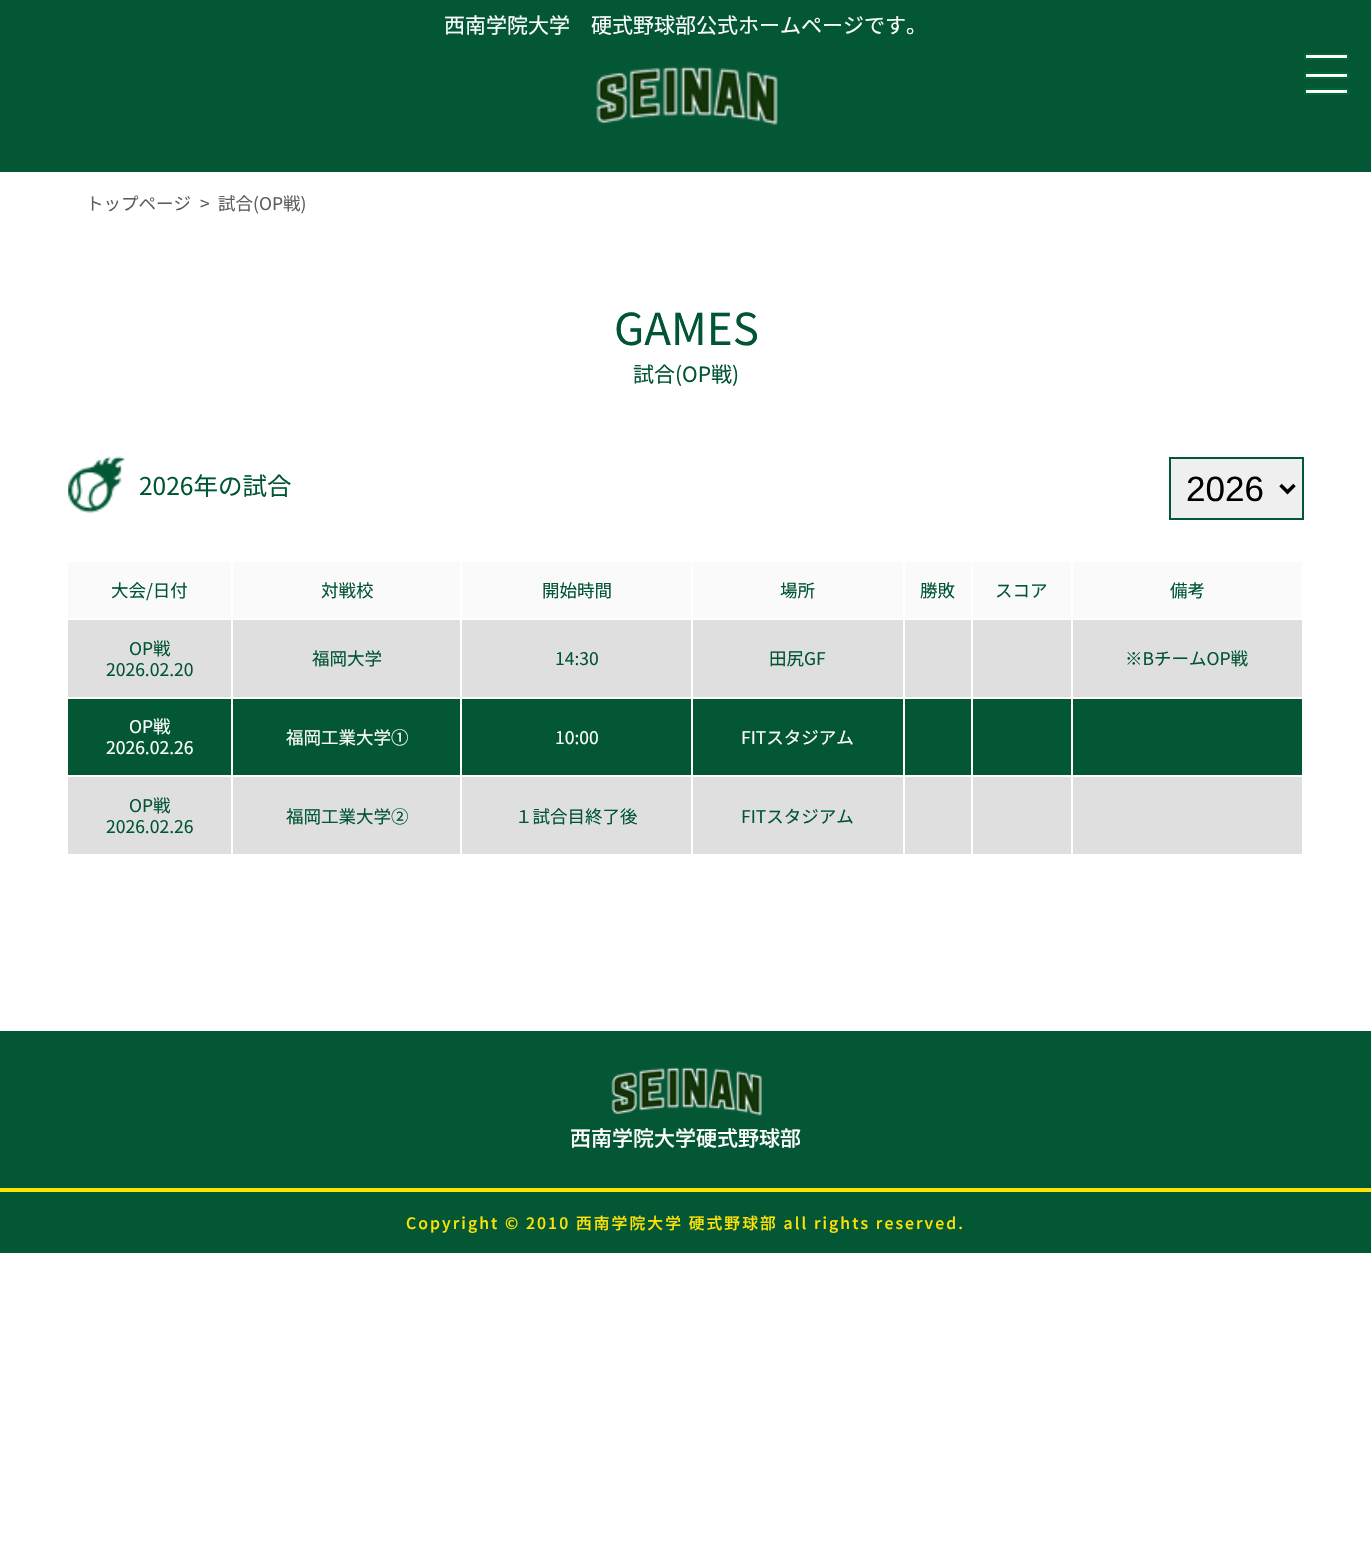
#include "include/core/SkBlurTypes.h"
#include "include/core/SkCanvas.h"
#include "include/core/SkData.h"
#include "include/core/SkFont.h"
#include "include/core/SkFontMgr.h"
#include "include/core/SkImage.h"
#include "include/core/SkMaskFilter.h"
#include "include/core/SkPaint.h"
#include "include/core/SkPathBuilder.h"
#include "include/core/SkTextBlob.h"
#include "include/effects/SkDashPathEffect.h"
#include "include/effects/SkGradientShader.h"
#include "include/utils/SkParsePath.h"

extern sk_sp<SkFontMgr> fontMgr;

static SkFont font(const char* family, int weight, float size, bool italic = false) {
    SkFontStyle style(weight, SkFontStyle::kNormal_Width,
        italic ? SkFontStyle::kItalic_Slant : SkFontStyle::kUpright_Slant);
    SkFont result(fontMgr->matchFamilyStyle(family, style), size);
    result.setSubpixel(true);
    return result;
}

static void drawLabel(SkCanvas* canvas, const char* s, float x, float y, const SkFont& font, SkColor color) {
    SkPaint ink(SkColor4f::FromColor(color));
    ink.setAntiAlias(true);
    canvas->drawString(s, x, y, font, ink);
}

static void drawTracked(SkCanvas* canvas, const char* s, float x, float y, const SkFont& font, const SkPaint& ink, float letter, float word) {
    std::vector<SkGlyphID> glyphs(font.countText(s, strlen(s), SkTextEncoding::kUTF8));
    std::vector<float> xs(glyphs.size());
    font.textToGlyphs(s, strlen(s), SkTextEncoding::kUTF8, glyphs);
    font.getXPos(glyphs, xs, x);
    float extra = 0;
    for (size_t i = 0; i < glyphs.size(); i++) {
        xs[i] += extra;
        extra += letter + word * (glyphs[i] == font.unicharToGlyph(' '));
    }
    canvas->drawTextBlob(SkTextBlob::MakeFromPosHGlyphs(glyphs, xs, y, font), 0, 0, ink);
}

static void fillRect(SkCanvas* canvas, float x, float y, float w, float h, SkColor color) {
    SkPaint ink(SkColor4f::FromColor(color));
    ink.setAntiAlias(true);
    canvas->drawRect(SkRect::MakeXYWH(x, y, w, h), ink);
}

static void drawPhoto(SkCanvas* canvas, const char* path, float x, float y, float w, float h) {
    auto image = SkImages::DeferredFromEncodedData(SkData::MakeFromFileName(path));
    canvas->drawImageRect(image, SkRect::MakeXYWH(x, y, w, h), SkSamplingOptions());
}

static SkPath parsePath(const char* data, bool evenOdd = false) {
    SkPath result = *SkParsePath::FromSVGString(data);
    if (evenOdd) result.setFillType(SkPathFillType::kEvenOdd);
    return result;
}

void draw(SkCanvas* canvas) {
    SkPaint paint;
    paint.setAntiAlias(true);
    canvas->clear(0xFFFFFFFF);
    fillRect(canvas, 0, 0, 1371, 172, 0xFF035735);
    SkFont font1 = font("Noto Sans JP", 400, 21);
    drawLabel(canvas, "西南学院大学　硬式野球部公式ホームページです。", 444, 33, font1, 0xFFFFFFFF);
    drawPhoto(canvas, "assets/img1.png", 596, 66, 182, 59);
    paint.setColor(0xFFFFFFFF);
    canvas->drawRect(SkRect::MakeXYWH(1305, 54, 43, 5), paint);
    paint.setStroke(true);
    paint.setStrokeWidth(2);
    paint.setColor(0xFF006633);
    canvas->drawRect(SkRect::MakeXYWH(1305, 54, 43, 5), paint);
    paint.setStroke(false);
    paint.setColor(0xFFFFFFFF);
    canvas->drawRect(SkRect::MakeXYWH(1305, 73, 43, 5), paint);
    paint.setStroke(true);
    paint.setColor(0xFF006633);
    canvas->drawRect(SkRect::MakeXYWH(1305, 73, 43, 5), paint);
    paint.setStroke(false);
    paint.setColor(0xFFFFFFFF);
    canvas->drawRect(SkRect::MakeXYWH(1305, 89, 43, 5), paint);
    paint.setStroke(true);
    paint.setColor(0xFF006633);
    canvas->drawRect(SkRect::MakeXYWH(1305, 89, 43, 5), paint);
    SkFont font2 = font("Noto Sans JP", 400, 17.5f);
    drawLabel(canvas, "トップページ", 86, 210, font2, 0xFF5E5E5E);
    drawLabel(canvas, ">", 200, 210, font2, 0xFF5E5E5E);
    drawLabel(canvas, "試合(OP戦)", 218, 210, font2, 0xFF5E5E5E);
    SkFont font3 = font("Noto Sans JP", 400, 44);
    drawLabel(canvas, "GAMES", 614, 345, font3, 0xFF005533);
    drawLabel(canvas, "試合(OP戦)", 633, 382, font1, 0xFF005533);
    drawPhoto(canvas, "assets/img2.png", 68, 456, 57, 57);
    SkFont font4 = font("Noto Sans JP", 400, 24.5f);
    drawLabel(canvas, "2026年の試合", 139, 495, font4, 0xFF005533);
    paint.setStroke(false);
    paint.setColor(0xFFEFEFEF);
    canvas->drawRect(SkRect::MakeXYWH(1170, 458, 133, 61), paint);
    paint.setStroke(true);
    paint.setColor(0xFF035735);
    canvas->drawRect(SkRect::MakeXYWH(1170, 458, 133, 61), paint);
    paint.setStrokeWidth(3.5f);
    paint.setColor(0xFF000000);
    canvas->drawPath(parsePath("M1280.5 485L1287.5 492L1294.5 485"), paint);
    SkFont font5 = font("Liberation Sans", 400, 35);
    drawLabel(canvas, "2026", 1186, 501, font5, 0xFF000000);
    fillRect(canvas, 68, 562, 1234, 56, 0xFFFAFAFA);
    drawLabel(canvas, "大会/日付", 111, 597, font2, 0xFF005533);
    drawLabel(canvas, "対戦校", 321, 597, font2, 0xFF005533);
    drawLabel(canvas, "開始時間", 542, 597, font2, 0xFF005533);
    drawLabel(canvas, "場所", 780, 597, font2, 0xFF005533);
    drawLabel(canvas, "勝敗", 920, 597, font2, 0xFF005533);
    drawLabel(canvas, "スコア", 995, 597, font2, 0xFF005533);
    drawLabel(canvas, "備考", 1170, 597, font2, 0xFF005533);
    fillRect(canvas, 68, 620, 1234, 77, 0xFFDFDFDF);
    drawLabel(canvas, "OP戦", 129, 655, font2, 0xFF005533);
    drawLabel(canvas, "2026.02.20", 106, 676, font2, 0xFF005533);
    drawLabel(canvas, "福岡大学", 312, 665, font2, 0xFF005533);
    drawLabel(canvas, "14:30", 555, 665, font2, 0xFF005533);
    drawLabel(canvas, "田尻GF", 769, 665, font2, 0xFF005533);
    drawLabel(canvas, "※BチームOP戦", 1125, 665, font2, 0xFF005533);
    fillRect(canvas, 68, 699, 1234, 76, 0xFF035735);
    drawLabel(canvas, "OP戦", 129, 733, font2, 0xFFFFFFFF);
    drawLabel(canvas, "2026.02.26", 106, 754, font2, 0xFFFFFFFF);
    drawLabel(canvas, "福岡工業大学①", 286, 744, font2, 0xFFFFFFFF);
    drawLabel(canvas, "10:00", 555, 744, font2, 0xFFFFFFFF);
    drawLabel(canvas, "FITスタジアム", 741, 744, font2, 0xFFFFFFFF);
    fillRect(canvas, 68, 777, 1234, 77, 0xFFDFDFDF);
    fillRect(canvas, 231, 562, 2, 294, 0xFFFFFFFF);
    drawLabel(canvas, "OP戦", 129, 812, font2, 0xFF005533);
    drawLabel(canvas, "2026.02.26", 106, 833, font2, 0xFF005533);
    fillRect(canvas, 460, 562, 2, 294, 0xFFFFFFFF);
    drawLabel(canvas, "福岡工業大学②", 286, 823, font2, 0xFF005533);
    fillRect(canvas, 691, 562, 2, 294, 0xFFFFFFFF);
    drawLabel(canvas, "１試合目終了後", 515, 823, font2, 0xFF005533);
    fillRect(canvas, 903, 562, 2, 294, 0xFFFFFFFF);
    drawLabel(canvas, "FITスタジアム", 741, 823, font2, 0xFF005533);
    fillRect(canvas, 971, 562, 2, 294, 0xFFFFFFFF);
    fillRect(canvas, 1071, 562, 2, 294, 0xFFFFFFFF);
    fillRect(canvas, 0, 1031, 1371, 222, 0xFF035735);
    drawPhoto(canvas, "assets/img3.png", 611, 1067, 151, 49);
    SkFont font6 = font("Noto Sans JP", 500, 21);
    drawLabel(canvas, "西南学院大学硬式野球部", 570, 1146, font6, 0xFFFFFFFF);
    fillRect(canvas, 0, 1188, 1371, 4, 0xFFFEE306);
    SkFont font7 = font("Noto Sans JP", 500, 15.75f);
    paint.setStroke(false);
    paint.setColor(0xFFFEE306);
    drawTracked(canvas, "Copyright © 2010 西南学院大学 硬式野球部 all rights reserved.", 406, 1229, font7, paint, 2.1f, 0);
}
